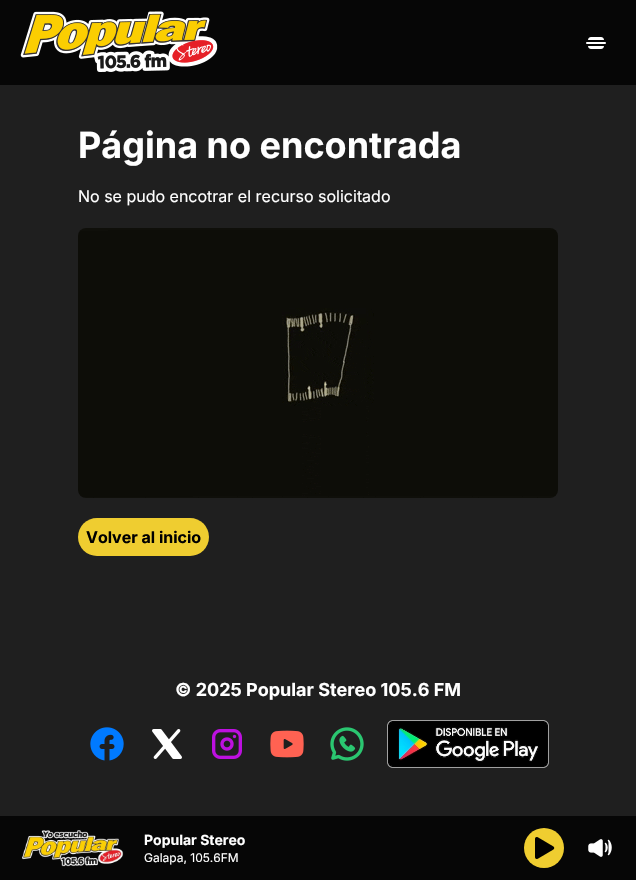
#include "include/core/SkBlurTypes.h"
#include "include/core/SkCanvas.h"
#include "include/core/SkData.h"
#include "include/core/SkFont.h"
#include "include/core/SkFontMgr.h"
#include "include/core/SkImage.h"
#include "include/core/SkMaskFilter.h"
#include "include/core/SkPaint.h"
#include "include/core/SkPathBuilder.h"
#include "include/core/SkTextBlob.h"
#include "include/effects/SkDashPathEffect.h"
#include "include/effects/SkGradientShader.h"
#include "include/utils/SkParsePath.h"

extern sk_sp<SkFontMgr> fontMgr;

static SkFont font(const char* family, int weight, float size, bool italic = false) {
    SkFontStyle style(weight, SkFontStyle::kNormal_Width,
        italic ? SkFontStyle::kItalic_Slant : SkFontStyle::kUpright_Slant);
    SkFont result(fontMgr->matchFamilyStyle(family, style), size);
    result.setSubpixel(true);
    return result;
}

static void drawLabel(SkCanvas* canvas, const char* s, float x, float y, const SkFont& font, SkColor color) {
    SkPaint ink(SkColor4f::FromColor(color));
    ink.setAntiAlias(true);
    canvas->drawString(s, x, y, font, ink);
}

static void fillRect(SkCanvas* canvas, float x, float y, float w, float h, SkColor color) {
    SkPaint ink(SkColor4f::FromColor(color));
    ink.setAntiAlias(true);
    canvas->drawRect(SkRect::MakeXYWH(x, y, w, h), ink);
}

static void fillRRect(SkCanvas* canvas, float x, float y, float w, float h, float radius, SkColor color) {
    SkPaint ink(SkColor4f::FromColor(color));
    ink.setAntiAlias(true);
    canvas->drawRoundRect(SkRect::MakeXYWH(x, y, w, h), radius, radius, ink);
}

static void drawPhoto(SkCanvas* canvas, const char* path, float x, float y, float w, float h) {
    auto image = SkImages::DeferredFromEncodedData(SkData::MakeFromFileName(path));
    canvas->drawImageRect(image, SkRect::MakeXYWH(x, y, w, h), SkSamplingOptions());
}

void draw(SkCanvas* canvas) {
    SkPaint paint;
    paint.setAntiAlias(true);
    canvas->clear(0xFF1F1F1F);
    fillRect(canvas, 0, 0, 636, 85, 0xFF060606);
    drawPhoto(canvas, "assets/img1.png", 20, 11, 198, 61);
    drawPhoto(canvas, "assets/img2.png", 586, 37, 20, 12);
    SkFont font1 = font("Inter", 700, 36);
    drawLabel(canvas, "Página no encontrada", 78, 158, font1, 0xFFFFFFFF);
    SkFont font2 = font("Inter", 400, 16);
    drawLabel(canvas, "No se pudo encotrar el recurso solicitado", 78, 202, font2, 0xFFFFFFFF);
    drawPhoto(canvas, "assets/img3.png", 78, 228, 480, 270);
    fillRRect(canvas, 78, 518, 131, 38, 19, 0xFFEFCD30);
    SkFont font3 = font("Inter", 700, 16);
    drawLabel(canvas, "Volver al inicio", 86, 543, font3, 0xFF000000);
    SkFont font4 = font("Inter", 700, 18);
    drawLabel(canvas, "© 2025 Popular Stereo 105.6 FM", 175, 696, font4, 0xFFFFFFFF);
    drawPhoto(canvas, "assets/img4.png", 90, 727, 34, 34);
    drawPhoto(canvas, "assets/img5.png", 152, 729, 30, 30);
    drawPhoto(canvas, "assets/img6.png", 212, 729, 30, 30);
    drawPhoto(canvas, "assets/img7.png", 270, 730, 34, 28);
    drawPhoto(canvas, "assets/img8.png", 330, 727, 34, 34);
    drawPhoto(canvas, "assets/img9.png", 387, 720, 162, 48);
    fillRect(canvas, 0, 816, 636, 64, 0xFF060606);
    drawPhoto(canvas, "assets/img10.png", 22, 830, 102, 37);
    SkFont font5 = font("Inter", 700, 14);
    drawLabel(canvas, "Popular Stereo", 144, 845, font5, 0xFFFFFFFF);
    SkFont font6 = font("Inter", 400, 12);
    drawLabel(canvas, "Galapa, 105.6FM", 144, 862, font6, 0xFFFFFFFF);
    paint.setColor(0xFFEFCD30);
    canvas->drawCircle(544, 848, 20, paint);
    drawPhoto(canvas, "assets/img11.png", 535, 837, 20, 22);
    drawPhoto(canvas, "assets/img12.png", 588, 839, 24, 18);
}
